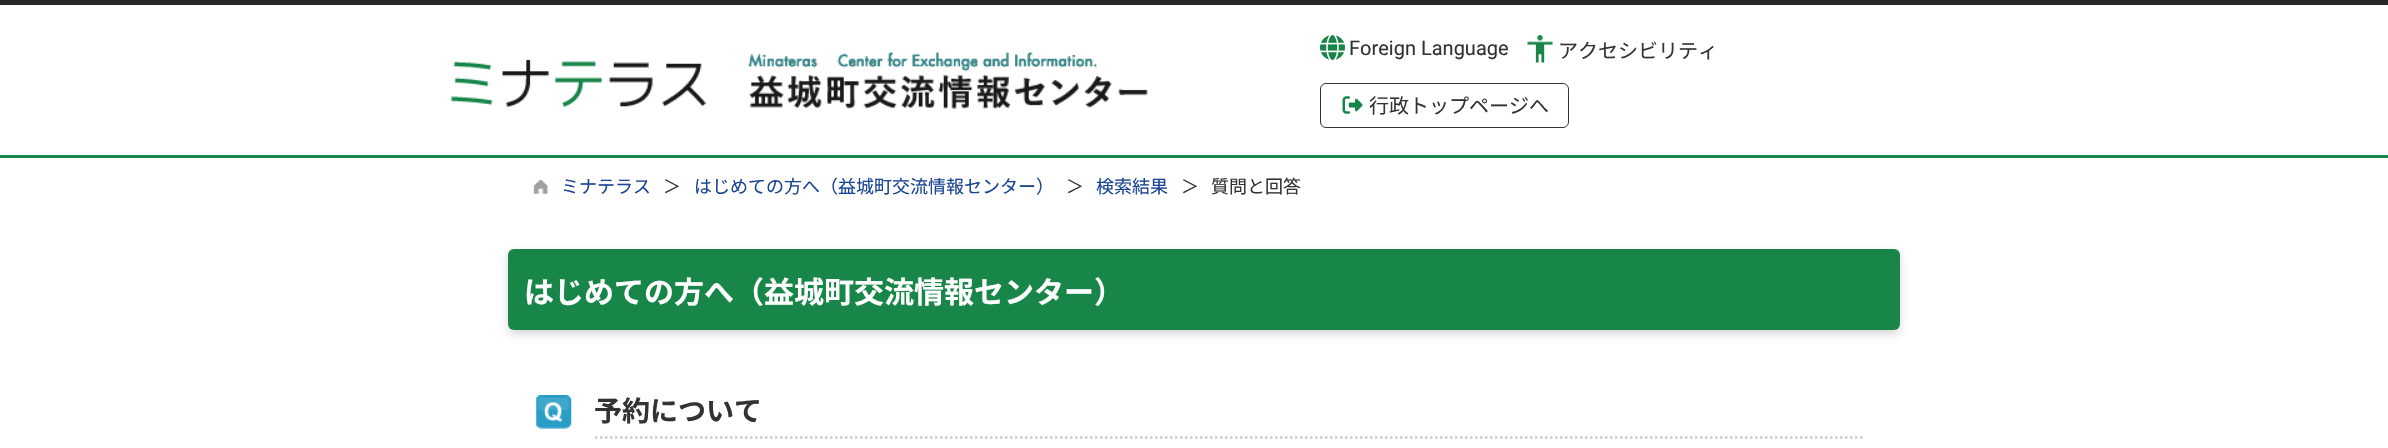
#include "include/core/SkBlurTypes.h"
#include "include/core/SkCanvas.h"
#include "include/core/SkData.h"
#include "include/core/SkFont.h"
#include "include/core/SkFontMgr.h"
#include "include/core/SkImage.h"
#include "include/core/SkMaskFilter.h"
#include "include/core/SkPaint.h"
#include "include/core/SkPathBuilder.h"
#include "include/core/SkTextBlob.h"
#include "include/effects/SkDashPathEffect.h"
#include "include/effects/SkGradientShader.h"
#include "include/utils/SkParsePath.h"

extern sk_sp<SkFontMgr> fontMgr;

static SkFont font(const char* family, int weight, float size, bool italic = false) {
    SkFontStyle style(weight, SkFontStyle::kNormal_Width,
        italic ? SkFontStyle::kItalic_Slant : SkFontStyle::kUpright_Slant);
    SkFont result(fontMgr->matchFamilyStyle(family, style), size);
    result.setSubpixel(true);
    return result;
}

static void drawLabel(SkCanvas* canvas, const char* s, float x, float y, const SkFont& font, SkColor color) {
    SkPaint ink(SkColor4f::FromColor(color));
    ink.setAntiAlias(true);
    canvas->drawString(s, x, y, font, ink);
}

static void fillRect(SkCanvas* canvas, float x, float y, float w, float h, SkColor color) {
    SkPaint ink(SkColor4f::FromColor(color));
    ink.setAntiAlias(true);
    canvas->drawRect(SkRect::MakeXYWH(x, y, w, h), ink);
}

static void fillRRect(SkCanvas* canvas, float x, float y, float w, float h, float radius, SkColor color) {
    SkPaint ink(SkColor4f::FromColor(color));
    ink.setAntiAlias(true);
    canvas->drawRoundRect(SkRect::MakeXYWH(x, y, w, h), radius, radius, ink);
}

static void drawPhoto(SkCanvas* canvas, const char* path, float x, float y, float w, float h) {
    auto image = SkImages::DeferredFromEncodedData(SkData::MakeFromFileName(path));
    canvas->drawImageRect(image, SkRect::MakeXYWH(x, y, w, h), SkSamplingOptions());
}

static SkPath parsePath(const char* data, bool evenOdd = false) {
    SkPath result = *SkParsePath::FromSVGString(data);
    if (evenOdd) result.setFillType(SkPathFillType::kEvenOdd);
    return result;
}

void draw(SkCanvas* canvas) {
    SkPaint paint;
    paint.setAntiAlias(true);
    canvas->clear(0xFFFFFFFF);
    fillRect(canvas, 0, 0, 2388, 5, 0xFF282828);
    fillRect(canvas, 0, 155, 2388, 3, 0xFF178548);
    drawPhoto(canvas, "assets/img1.png", 451, 52, 697, 57);
    drawPhoto(canvas, "assets/img2.png", 1320, 35, 25, 25);
    SkFont font1 = font("Roboto", 400, 20);
    drawLabel(canvas, "Foreign Language", 1349, 55, font1, 0xFF333333);
    drawPhoto(canvas, "assets/img3.png", 1527, 35, 26, 28);
    SkFont font2 = font("Noto Sans JP", 400, 20);
    drawLabel(canvas, "アクセシビリティ", 1558, 58, font2, 0xFF333333);
    paint.setStroke(true);
    paint.setStrokeWidth(1);
    paint.setColor(0xFF333333);
    canvas->drawRoundRect(SkRect::MakeXYWH(1320.5f, 83.5f, 248, 44), 5.5f, 5.5f, paint);
    drawPhoto(canvas, "assets/img4.png", 1342, 96, 21, 18);
    drawLabel(canvas, "行政トップページへ", 1369, 113, font2, 0xFF333333);
    drawPhoto(canvas, "assets/img5.png", 533, 180, 15, 14);
    SkFont font3 = font("Noto Sans JP", 400, 18);
    drawLabel(canvas, "ミナテラス", 561, 193, font3, 0xFF194593);
    drawLabel(canvas, "＞", 663, 193, font3, 0xFF333333);
    drawLabel(canvas, "はじめての方へ（益城町交流情報センター）", 694, 193, font3, 0xFF194593);
    drawLabel(canvas, "＞", 1066, 193, font3, 0xFF333333);
    drawLabel(canvas, "検索結果", 1096, 193, font3, 0xFF194593);
    drawLabel(canvas, "＞", 1181, 193, font3, 0xFF333333);
    drawLabel(canvas, "質問と回答", 1211, 193, font3, 0xFF333333);
    paint.setStroke(false);
    paint.setColor(0x29000000);
    paint.setMaskFilter(SkMaskFilter::MakeBlur(kNormal_SkBlurStyle, 4));
    canvas->drawRoundRect(SkRect::MakeXYWH(508, 253, 1392, 81), 6, 6, paint);
    paint.setMaskFilter(nullptr);
    fillRRect(canvas, 508, 249, 1392, 81, 6, 0xFF188549);
    SkFont font4 = font("Noto Sans JP", 700, 30);
    drawLabel(canvas, "はじめての方へ（益城町交流情報センター）", 524, 303, font4, 0xFFFFFFFF);
    drawPhoto(canvas, "assets/img6.png", 536, 395, 36, 34);
    paint.setStroke(true);
    paint.setStrokeWidth(2.5f);
    paint.setColor(0xFFCCCCCC);
    paint.setPathEffect(SkDashPathEffect::Make({{2.5f, 2.5f}}, 0));
    canvas->drawPath(parsePath("M595 437.5H1864"), paint);
    paint.setPathEffect(nullptr);
    SkFont font5 = font("Noto Sans JP", 700, 28);
    drawLabel(canvas, "予約について", 594, 421, font5, 0xFF333333);
}
